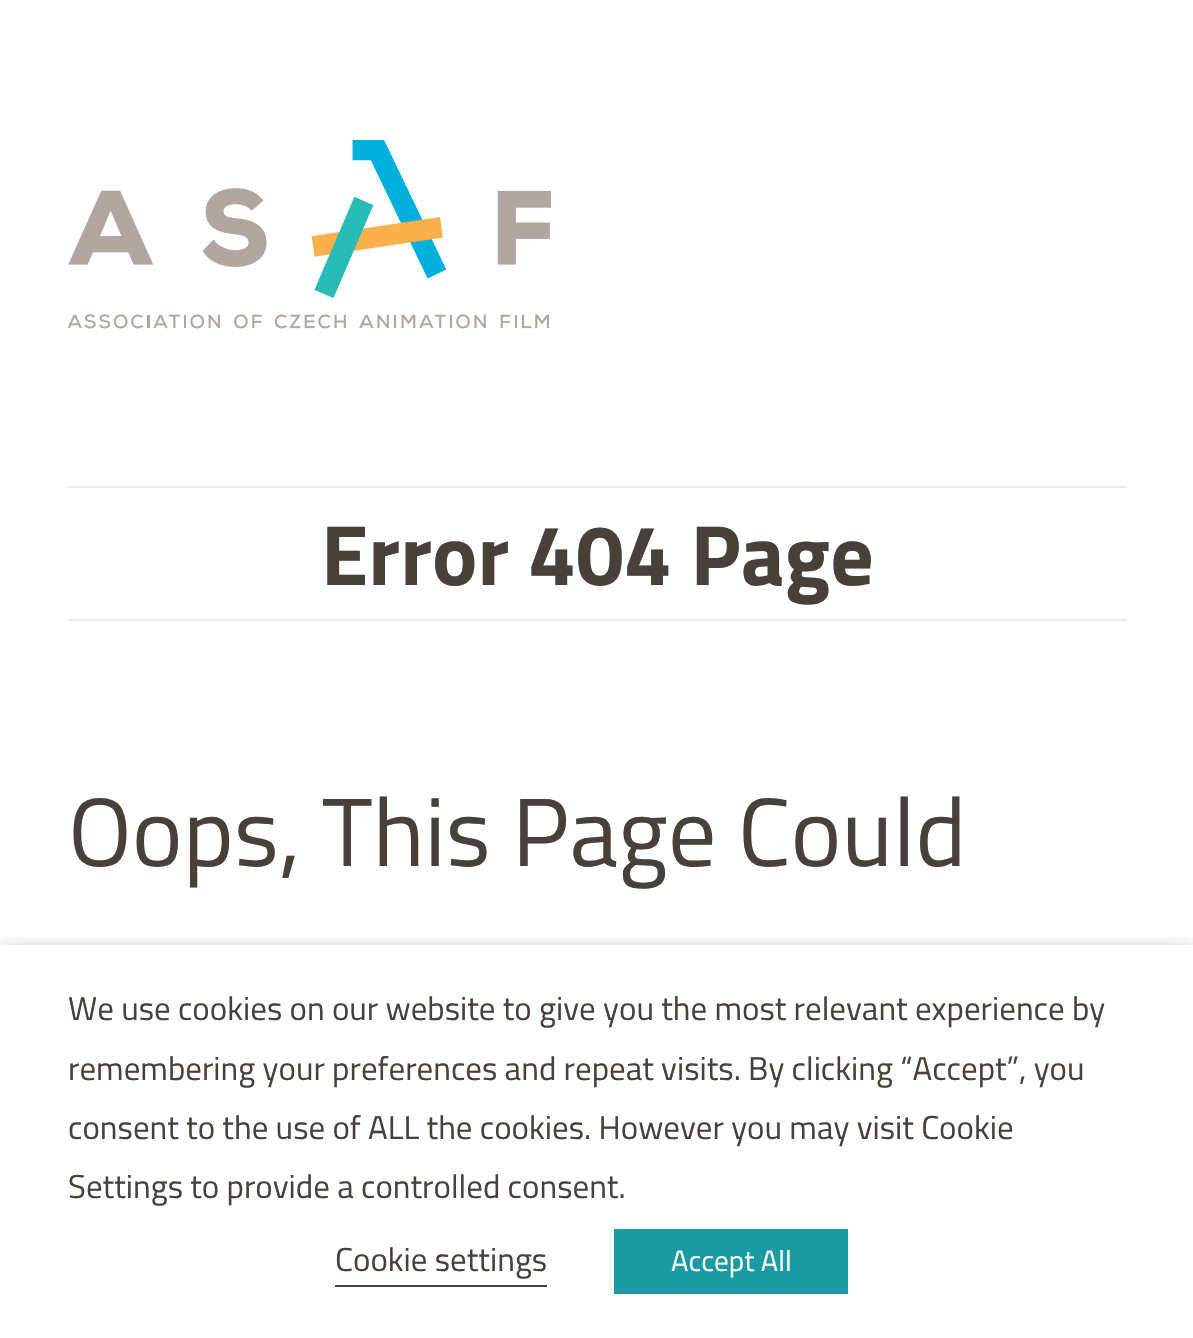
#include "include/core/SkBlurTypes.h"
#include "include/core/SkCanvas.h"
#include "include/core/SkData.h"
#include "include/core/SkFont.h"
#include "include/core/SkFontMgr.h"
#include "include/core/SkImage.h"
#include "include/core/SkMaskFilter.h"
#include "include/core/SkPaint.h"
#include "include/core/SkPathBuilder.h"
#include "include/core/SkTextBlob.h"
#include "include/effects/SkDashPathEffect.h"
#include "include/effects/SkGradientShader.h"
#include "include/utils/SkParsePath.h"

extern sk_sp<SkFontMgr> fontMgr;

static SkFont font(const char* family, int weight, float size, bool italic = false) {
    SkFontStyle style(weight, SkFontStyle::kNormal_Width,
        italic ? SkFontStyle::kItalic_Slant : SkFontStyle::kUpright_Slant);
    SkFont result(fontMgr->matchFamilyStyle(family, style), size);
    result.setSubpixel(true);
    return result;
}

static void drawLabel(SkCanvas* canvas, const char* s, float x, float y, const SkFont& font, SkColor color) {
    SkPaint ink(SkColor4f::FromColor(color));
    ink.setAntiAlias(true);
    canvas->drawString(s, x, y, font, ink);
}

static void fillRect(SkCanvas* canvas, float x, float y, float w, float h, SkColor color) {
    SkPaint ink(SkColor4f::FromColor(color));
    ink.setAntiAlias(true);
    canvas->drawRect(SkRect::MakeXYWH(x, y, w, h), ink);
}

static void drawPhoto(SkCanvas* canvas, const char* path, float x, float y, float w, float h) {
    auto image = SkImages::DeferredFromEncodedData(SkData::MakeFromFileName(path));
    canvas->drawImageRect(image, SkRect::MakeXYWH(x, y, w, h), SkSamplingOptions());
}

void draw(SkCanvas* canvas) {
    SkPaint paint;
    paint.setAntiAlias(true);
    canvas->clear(0xFFFFFFFF);
    drawPhoto(canvas, "assets/img1.png", 68, 140, 483, 189);
    fillRect(canvas, 68, 486, 1059, 2, 0xFFE9EAEE);
    fillRect(canvas, 68, 619, 1059, 2, 0xFFE9EAEE);
    SkFont font1 = font("Titillium Web", 700, 85.5f);
    drawLabel(canvas, "Error 404 Page", 321, 585, font1, 0xFF47413A);
    SkFont font2 = font("Titillium Web", 400, 96.75f);
    drawLabel(canvas, "Oops, This Page Could", 68, 866, font2, 0xFF47413A);
    canvas->save();
    canvas->clipRect(SkRect::MakeXYWH(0, 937, 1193, 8));
    paint.setColor(0x80000000);
    paint.setMaskFilter(SkMaskFilter::MakeBlur(kNormal_SkBlurStyle, 11));
    canvas->drawRect(SkRect::MakeXYWH(0, 956, 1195, 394), paint);
    paint.setMaskFilter(nullptr);
    canvas->restore();
    SkFont font3 = font("Titillium Web", 400, 33);
    drawLabel(canvas, "We use cookies on our website to give you the most relevant experience by", 68, 1020, font3, 0xFF47413A);
    drawLabel(canvas, "remembering your preferences and repeat visits. By clicking “Accept”, you", 68, 1080, font3, 0xFF47413A);
    drawLabel(canvas, "consent to the use of ALL the cookies. However you may visit Cookie", 68, 1139, font3, 0xFF47413A);
    drawLabel(canvas, "Settings to provide a controlled consent.", 68, 1198, font3, 0xFF47413A);
    drawLabel(canvas, "Cookie settings", 335, 1271, font3, 0xFF47413A);
    fillRect(canvas, 335, 1285, 212, 2, 0xFF47413A);
    fillRect(canvas, 614, 1229, 234, 65, 0xFF1A9BA3);
    SkFont font4 = font("Titillium Web", 400, 29.25f);
    drawLabel(canvas, "Accept All", 671, 1271, font4, 0xFFFFFFFF);
}
